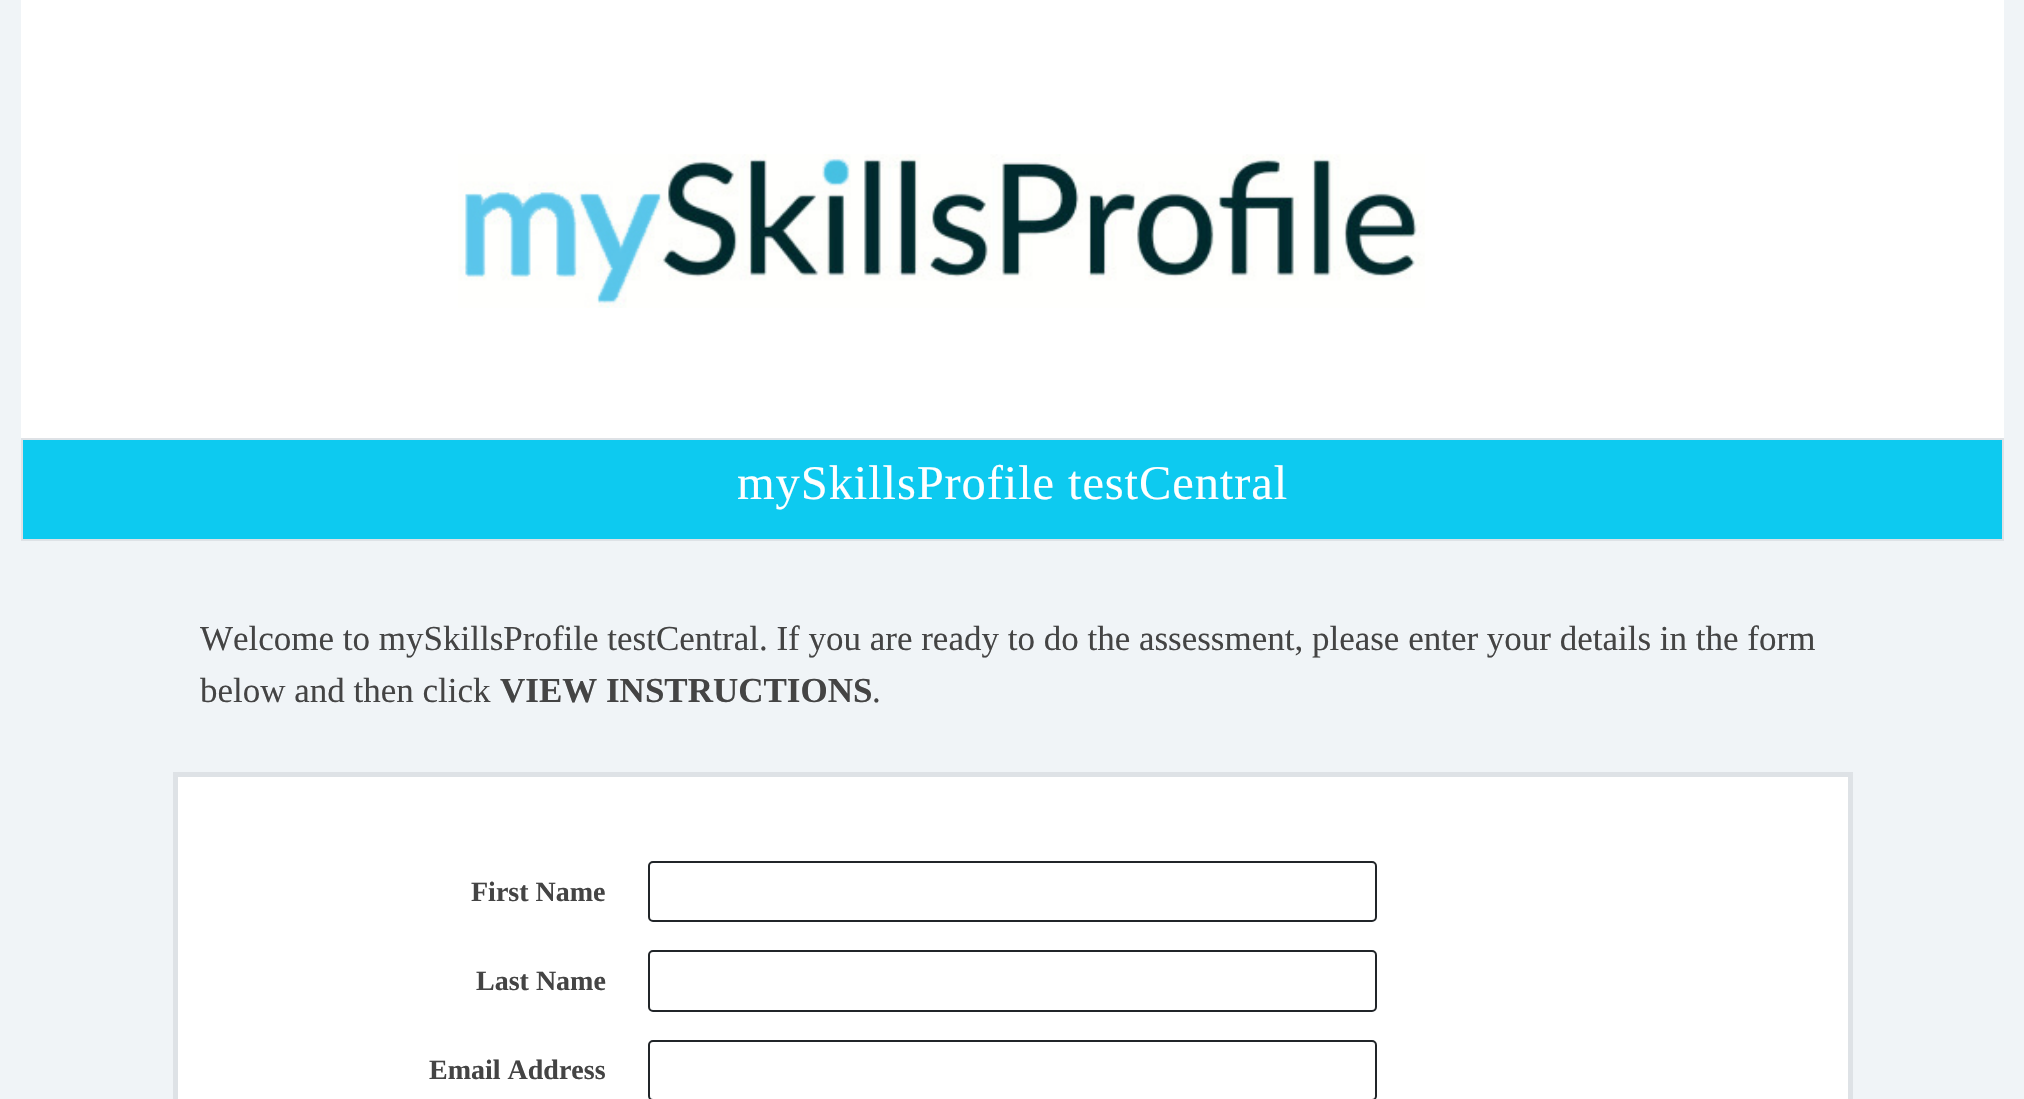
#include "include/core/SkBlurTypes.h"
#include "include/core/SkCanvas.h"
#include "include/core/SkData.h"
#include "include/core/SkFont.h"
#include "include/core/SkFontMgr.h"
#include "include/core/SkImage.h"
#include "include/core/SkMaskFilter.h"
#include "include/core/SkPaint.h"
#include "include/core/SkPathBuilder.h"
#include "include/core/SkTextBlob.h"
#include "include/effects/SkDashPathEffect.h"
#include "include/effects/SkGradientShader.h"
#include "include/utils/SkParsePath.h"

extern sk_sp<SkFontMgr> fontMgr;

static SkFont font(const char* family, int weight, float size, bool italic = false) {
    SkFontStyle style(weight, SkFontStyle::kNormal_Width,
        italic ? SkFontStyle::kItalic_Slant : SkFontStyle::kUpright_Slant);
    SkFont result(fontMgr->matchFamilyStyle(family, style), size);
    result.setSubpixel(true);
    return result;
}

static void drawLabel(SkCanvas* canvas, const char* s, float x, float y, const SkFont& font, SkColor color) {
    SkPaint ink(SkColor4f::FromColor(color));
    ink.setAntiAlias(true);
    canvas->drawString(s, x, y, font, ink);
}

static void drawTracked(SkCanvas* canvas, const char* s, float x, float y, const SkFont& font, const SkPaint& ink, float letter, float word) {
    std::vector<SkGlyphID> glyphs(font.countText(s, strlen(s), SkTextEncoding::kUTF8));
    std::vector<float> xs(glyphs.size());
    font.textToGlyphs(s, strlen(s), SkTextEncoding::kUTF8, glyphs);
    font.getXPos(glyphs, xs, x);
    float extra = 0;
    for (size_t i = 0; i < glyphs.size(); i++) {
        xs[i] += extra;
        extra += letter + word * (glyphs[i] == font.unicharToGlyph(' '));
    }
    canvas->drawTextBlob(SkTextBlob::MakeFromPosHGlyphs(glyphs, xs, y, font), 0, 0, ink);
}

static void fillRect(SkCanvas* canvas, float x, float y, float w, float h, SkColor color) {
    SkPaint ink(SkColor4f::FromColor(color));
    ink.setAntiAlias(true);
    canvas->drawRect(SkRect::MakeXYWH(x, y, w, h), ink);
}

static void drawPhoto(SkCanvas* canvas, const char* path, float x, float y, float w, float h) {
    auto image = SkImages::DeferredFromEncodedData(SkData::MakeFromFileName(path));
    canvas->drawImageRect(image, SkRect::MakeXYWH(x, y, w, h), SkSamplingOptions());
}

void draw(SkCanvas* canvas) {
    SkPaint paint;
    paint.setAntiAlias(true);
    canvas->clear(0xFFF0F4F7);
    fillRect(canvas, 21, 0, 1983, 438, 0xFFFFFFFF);
    drawPhoto(canvas, "assets/img1.png", 458, 154, 967, 154);
    paint.setColor(0xFF0DCAF0);
    canvas->drawRect(SkRect::MakeXYWH(22, 439, 1981, 101), paint);
    paint.setStroke(true);
    paint.setStrokeWidth(2);
    paint.setColor(0xFFDEE2E6);
    canvas->drawRect(SkRect::MakeXYWH(22, 439, 1981, 101), paint);
    SkFont font1 = font("Liberation Serif", 400, 48.5f);
    paint.setStroke(false);
    paint.setColor(0xFFFFFFFF);
    drawTracked(canvas, "mySkillsProfile testCentral", 737, 499, font1, paint, 0.9f, 0);
    SkFont font2 = font("Liberation Serif", 400, 35);
    drawLabel(canvas, "Welcome to mySkillsProfile testCentral. If you are ready to do the assessment, please enter your details in the form", 200, 650, font2, 0xFF444444);
    drawLabel(canvas, "below and then click", 200, 702, font2, 0xFF444444);
    SkFont font3 = font("Liberation Serif", 700, 35);
    drawLabel(canvas, "VIEW INSTRUCTIONS", 500, 702, font3, 0xFF444444);
    drawLabel(canvas, ".", 872, 702, font2, 0xFF444444);
    canvas->drawRect(SkRect::MakeXYWH(175.5f, 774.5f, 1675, 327), paint);
    paint.setStroke(true);
    paint.setStrokeWidth(5);
    paint.setColor(0xFFDEE2E6);
    canvas->drawRect(SkRect::MakeXYWH(175.5f, 774.5f, 1675, 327), paint);
    SkFont font4 = font("Liberation Serif", 700, 28);
    drawLabel(canvas, "First Name", 471, 901, font4, 0xFF444444);
    paint.setStrokeWidth(2);
    paint.setColor(0xFF212529);
    canvas->drawRoundRect(SkRect::MakeXYWH(649, 862, 727, 59), 4, 4, paint);
    drawLabel(canvas, "Last Name", 476, 990, font4, 0xFF444444);
    canvas->drawRoundRect(SkRect::MakeXYWH(649, 951, 727, 60), 4, 4, paint);
    drawLabel(canvas, "Email Address", 429, 1079, font4, 0xFF444444);
    canvas->drawRoundRect(SkRect::MakeXYWH(649, 1041, 727, 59), 4, 4, paint);
}
